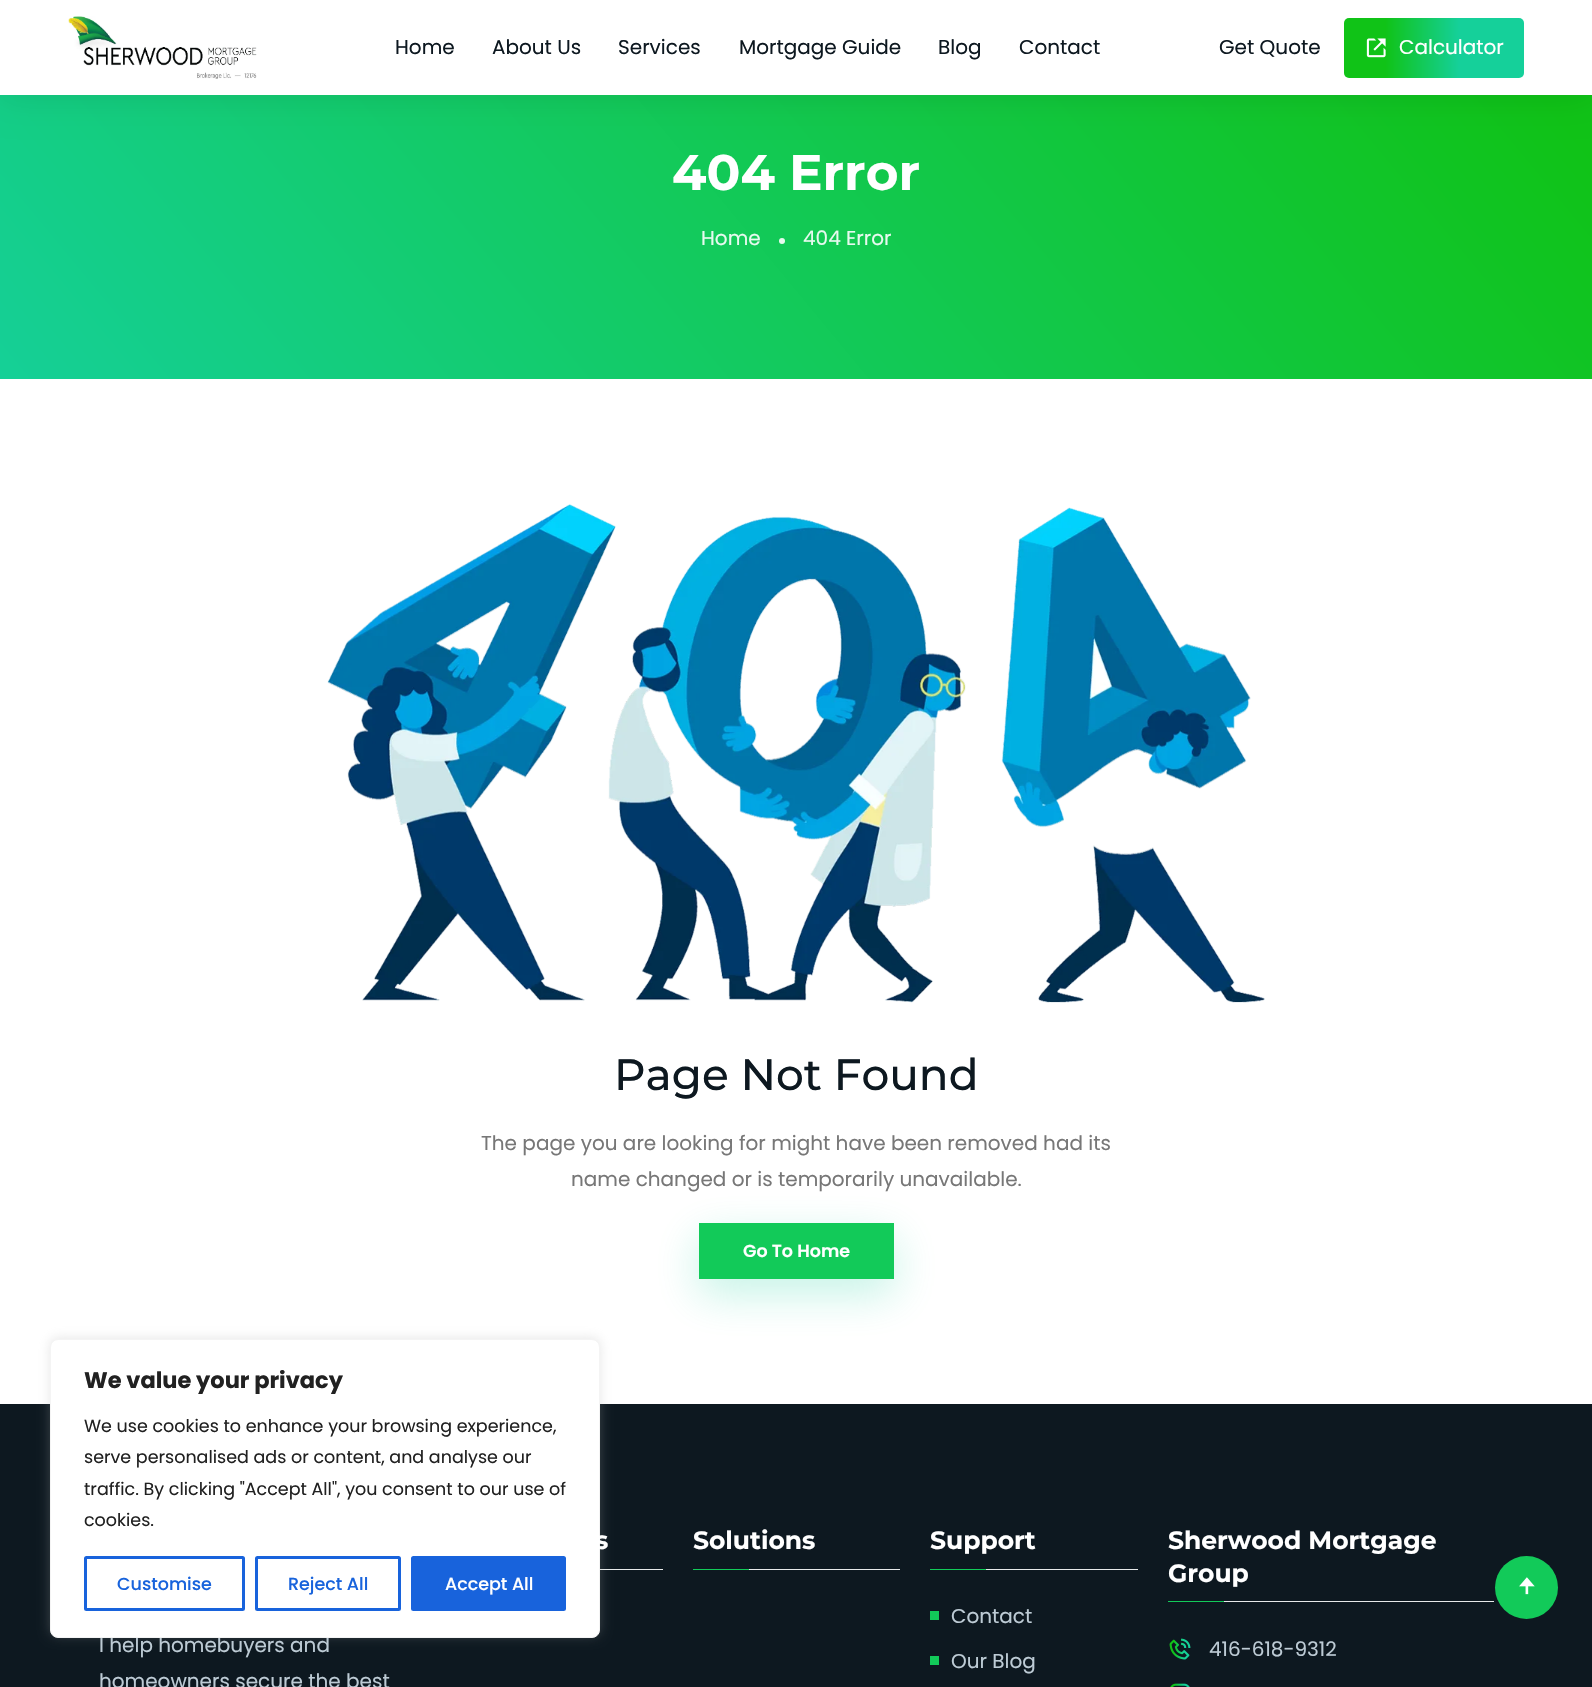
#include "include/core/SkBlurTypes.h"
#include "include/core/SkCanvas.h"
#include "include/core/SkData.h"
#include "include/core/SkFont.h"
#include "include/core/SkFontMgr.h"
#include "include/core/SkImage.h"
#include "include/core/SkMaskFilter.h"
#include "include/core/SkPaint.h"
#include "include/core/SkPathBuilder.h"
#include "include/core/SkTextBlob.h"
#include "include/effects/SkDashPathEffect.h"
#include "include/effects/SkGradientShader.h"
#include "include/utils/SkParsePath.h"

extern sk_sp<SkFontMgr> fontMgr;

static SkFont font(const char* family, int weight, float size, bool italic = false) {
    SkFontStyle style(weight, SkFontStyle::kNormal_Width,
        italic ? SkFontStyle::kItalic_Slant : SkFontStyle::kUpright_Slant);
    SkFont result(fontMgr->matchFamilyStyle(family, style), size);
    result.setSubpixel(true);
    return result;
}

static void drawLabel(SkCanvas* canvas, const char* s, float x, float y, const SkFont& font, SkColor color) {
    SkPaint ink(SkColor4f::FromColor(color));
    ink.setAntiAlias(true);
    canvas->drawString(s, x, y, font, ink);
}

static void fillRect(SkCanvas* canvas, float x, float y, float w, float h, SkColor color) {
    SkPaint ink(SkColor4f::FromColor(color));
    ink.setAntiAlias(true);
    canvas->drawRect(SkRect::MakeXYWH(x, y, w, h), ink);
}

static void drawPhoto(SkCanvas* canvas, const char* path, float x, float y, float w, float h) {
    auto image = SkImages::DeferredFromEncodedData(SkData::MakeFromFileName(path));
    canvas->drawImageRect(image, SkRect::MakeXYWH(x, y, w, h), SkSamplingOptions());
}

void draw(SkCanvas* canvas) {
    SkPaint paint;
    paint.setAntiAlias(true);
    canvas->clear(0xFFFFFFFF);
    {
        const SkColor colors[] = {0xFF15D09A, 0xFF10C317};
        const float stops[] = {0, 0.94f};
        const SkPoint ends[] = {{210, 681}, {1359, -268}};
        paint.setShader(SkGradientShader::MakeLinear(ends, colors, stops, 2, SkTileMode::kClamp));
        paint.setAlpha(255);
    }
    canvas->drawRect(SkRect::MakeXYWH(0, 95, 1592, 284), paint);
    paint.setShader(nullptr);
    paint.setColor(0x17000000);
    paint.setMaskFilter(SkMaskFilter::MakeBlur(kNormal_SkBlurStyle, 17.5f));
    canvas->drawRect(SkRect::MakeXYWH(0, 3, 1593, 95), paint);
    paint.setMaskFilter(nullptr);
    fillRect(canvas, 0, 0, 1592, 95, 0xFFFFFFFF);
    drawPhoto(canvas, "assets/img1.png", 68, 16, 189, 63);
    SkFont font1 = font("Poppins", 400, 20);
    drawLabel(canvas, "Home", 395, 54, font1, 0xFF0D1820);
    drawLabel(canvas, "About Us", 492, 54, font1, 0xFF0D1820);
    drawLabel(canvas, "Services", 618, 54, font1, 0xFF0D1820);
    drawLabel(canvas, "Mortgage Guide", 739, 54, font1, 0xFF0D1820);
    drawLabel(canvas, "Blog", 938, 54, font1, 0xFF0D1820);
    drawLabel(canvas, "Contact", 1019, 54, font1, 0xFF0D1820);
    drawLabel(canvas, "Get Quote", 1219, 54, font1, 0xFF0D1820);
    {
        const SkColor colors[] = {0xFF10C317, 0xFF15D09A};
        const float stops[] = {0.23f, 0.64f};
        const SkPoint ends[] = {{1344, 48}, {1524, 47}};
        paint.setShader(SkGradientShader::MakeLinear(ends, colors, stops, 2, SkTileMode::kClamp));
        paint.setAlpha(255);
    }
    canvas->drawRoundRect(SkRect::MakeXYWH(1344, 18, 180, 60), 5, 5, paint);
    drawPhoto(canvas, "assets/img2.png", 1366, 38, 20, 20);
    drawLabel(canvas, "Calculator", 1399, 54, font1, 0xFFFFFFFF);
    SkFont font2 = font("Montserrat", 700, 50);
    drawLabel(canvas, "404 Error", 672, 190, font2, 0xFFFFFFFF);
    drawLabel(canvas, "Home", 701, 245, font1, 0xFFE7FAEF);
    paint.setShader(nullptr);
    paint.setColor(0xFFE7FAEE);
    canvas->drawCircle(782, 241, 3, paint);
    drawLabel(canvas, "404 Error", 803, 245, font1, 0xFFE7FAEF);
    drawPhoto(canvas, "assets/img3.png", 327, 504, 938, 499);
    SkFont font3 = font("Montserrat", 500, 43.75f);
    drawLabel(canvas, "Page Not Found", 614, 1090, font3, 0xFF0D1820);
    drawLabel(canvas, "The page you are looking for might have been removed had its", 481, 1150, font1, 0xFF777777);
    drawLabel(canvas, "name changed or is temporarily unavailable.", 571, 1186, font1, 0xFF777777);
    paint.setColor(0x4015D09A);
    paint.setMaskFilter(SkMaskFilter::MakeBlur(kNormal_SkBlurStyle, 22));
    canvas->drawRect(SkRect::MakeXYWH(699, 1238, 195, 56), paint);
    paint.setMaskFilter(nullptr);
    fillRect(canvas, 699, 1223, 195, 56, 0xFF12CA59);
    SkFont font4 = font("Poppins", 600, 17.5f);
    drawLabel(canvas, "Go To Home", 743, 1257, font4, 0xFFFFFFFF);
    fillRect(canvas, 0, 1404, 1592, 283, 0xFF0D1820);
    fillRect(canvas, 600, 1569, 63, 1, 0xFFE7E9EA);
    paint.setColor(0x4DACABAB);
    paint.setMaskFilter(SkMaskFilter::MakeBlur(kNormal_SkBlurStyle, 6));
    canvas->drawRoundRect(SkRect::MakeXYWH(50, 1338, 550, 298), 8, 8, paint);
    paint.setMaskFilter(nullptr);
    drawLabel(canvas, "I help homebuyers and", 99, 1652, font1, 0xFFBDCBD5);
    paint.setColor(0xFFFFFFFF);
    canvas->drawRoundRect(SkRect::MakeXYWH(50.5f, 1339.5f, 549, 298), 7.5f, 7.5f, paint);
    paint.setStroke(true);
    paint.setStrokeWidth(1);
    paint.setColor(0xFFF4F4F4);
    canvas->drawRoundRect(SkRect::MakeXYWH(50.5f, 1339.5f, 549, 298), 7.5f, 7.5f, paint);
    SkFont font5 = font("Poppins", 700, 22.5f);
    drawLabel(canvas, "We value your privacy", 84, 1388, font5, 0xFF212121);
    SkFont font6 = font("Poppins", 400, 17.5f);
    drawLabel(canvas, "We use cookies to enhance your browsing experience,", 84, 1432, font6, 0xFF212121);
    drawLabel(canvas, "serve personalised ads or content, and analyse our", 84, 1463, font6, 0xFF212121);
    drawLabel(canvas, "traffic. By clicking \"Accept All\", you consent to our use of", 84, 1495, font6, 0xFF212121);
    drawLabel(canvas, "cookies.", 84, 1526, font6, 0xFF212121);
    paint.setStrokeWidth(3);
    paint.setColor(0xFF1863DC);
    canvas->drawRoundRect(SkRect::MakeXYWH(85.5f, 1557.5f, 158, 52), 1, 1, paint);
    SkFont font7 = font("Poppins", 500, 17.5f);
    drawLabel(canvas, "Customise", 117, 1590, font7, 0xFF1863DC);
    canvas->drawRoundRect(SkRect::MakeXYWH(256.5f, 1557.5f, 143, 52), 1, 1, paint);
    drawLabel(canvas, "Reject All", 288, 1590, font7, 0xFF1863DC);
    paint.setStroke(false);
    canvas->drawRoundRect(SkRect::MakeXYWH(412.5f, 1557.5f, 152, 52), 1, 1, paint);
    paint.setStroke(true);
    canvas->drawRoundRect(SkRect::MakeXYWH(412.5f, 1557.5f, 152, 52), 1, 1, paint);
    drawLabel(canvas, "Accept All", 445, 1590, font7, 0xFFFFFFFF);
    SkFont font8 = font("Montserrat", 700, 25);
    drawLabel(canvas, "s", 595, 1549, font8, 0xFFFFFFFF);
    fillRect(canvas, 749, 1569, 151, 1, 0xFFE7E9EA);
    drawLabel(canvas, "Solutions", 693, 1549, font8, 0xFFFFFFFF);
    fillRect(canvas, 693, 1569, 56, 1, 0xFF12CA59);
    fillRect(canvas, 986, 1569, 152, 1, 0xFFE7E9EA);
    drawLabel(canvas, "Support", 930, 1549, font8, 0xFFFFFFFF);
    fillRect(canvas, 930, 1569, 56, 1, 0xFF12CA59);
    fillRect(canvas, 930, 1611, 9, 9, 0xFF12CA59);
    drawLabel(canvas, "Contact", 951, 1623, font1, 0xFFBDCBD5);
    fillRect(canvas, 930, 1656, 9, 9, 0xFF12CA59);
    drawLabel(canvas, "Our Blog", 951, 1668, font1, 0xFFBDCBD5);
    fillRect(canvas, 1224, 1601, 270, 1, 0xFFE7E9EA);
    drawLabel(canvas, "Sherwood Mortgage", 1168, 1549, font8, 0xFFFFFFFF);
    drawLabel(canvas, "Group", 1168, 1582, font8, 0xFFFFFFFF);
    fillRect(canvas, 1168, 1601, 56, 1, 0xFF12CA59);
    drawPhoto(canvas, "assets/img4.png", 1169, 1638, 22, 22);
    drawLabel(canvas, "416-618-9312", 1209, 1656, font1, 0xFFBDCBD5);
    drawPhoto(canvas, "assets/img5.png", 1170, 1683, 20, 4);
    drawLabel(canvas, "homeowners secure the best", 99, 1688, font1, 0xFFBDCBD5);
    paint.setStroke(false);
    paint.setColor(0xFF12CA59);
    canvas->drawCircle(1526.5f, 1587.5f, 31.5f, paint);
    drawPhoto(canvas, "assets/img6.png", 1519, 1577, 16, 18);
}
